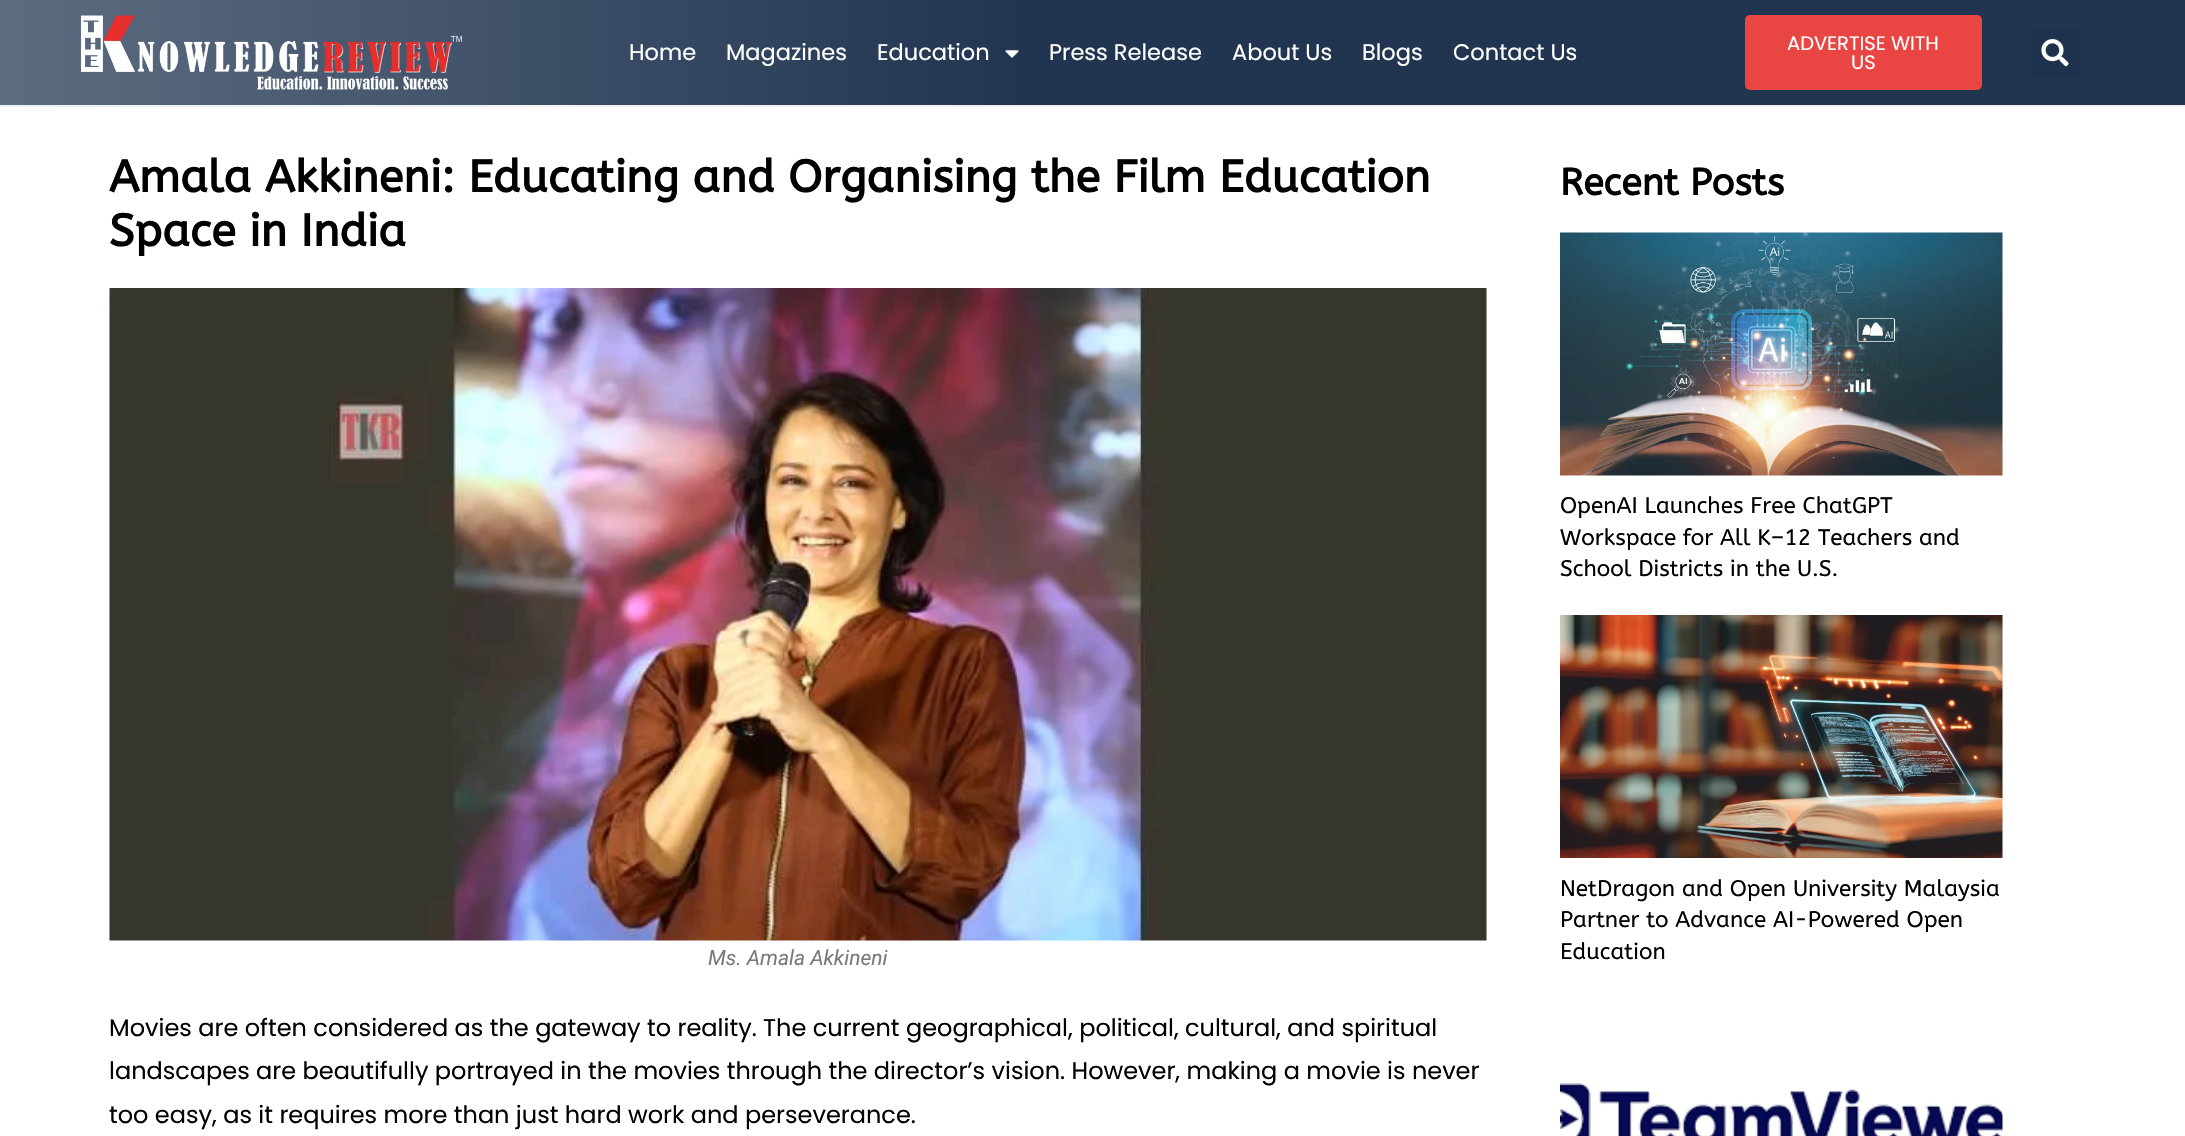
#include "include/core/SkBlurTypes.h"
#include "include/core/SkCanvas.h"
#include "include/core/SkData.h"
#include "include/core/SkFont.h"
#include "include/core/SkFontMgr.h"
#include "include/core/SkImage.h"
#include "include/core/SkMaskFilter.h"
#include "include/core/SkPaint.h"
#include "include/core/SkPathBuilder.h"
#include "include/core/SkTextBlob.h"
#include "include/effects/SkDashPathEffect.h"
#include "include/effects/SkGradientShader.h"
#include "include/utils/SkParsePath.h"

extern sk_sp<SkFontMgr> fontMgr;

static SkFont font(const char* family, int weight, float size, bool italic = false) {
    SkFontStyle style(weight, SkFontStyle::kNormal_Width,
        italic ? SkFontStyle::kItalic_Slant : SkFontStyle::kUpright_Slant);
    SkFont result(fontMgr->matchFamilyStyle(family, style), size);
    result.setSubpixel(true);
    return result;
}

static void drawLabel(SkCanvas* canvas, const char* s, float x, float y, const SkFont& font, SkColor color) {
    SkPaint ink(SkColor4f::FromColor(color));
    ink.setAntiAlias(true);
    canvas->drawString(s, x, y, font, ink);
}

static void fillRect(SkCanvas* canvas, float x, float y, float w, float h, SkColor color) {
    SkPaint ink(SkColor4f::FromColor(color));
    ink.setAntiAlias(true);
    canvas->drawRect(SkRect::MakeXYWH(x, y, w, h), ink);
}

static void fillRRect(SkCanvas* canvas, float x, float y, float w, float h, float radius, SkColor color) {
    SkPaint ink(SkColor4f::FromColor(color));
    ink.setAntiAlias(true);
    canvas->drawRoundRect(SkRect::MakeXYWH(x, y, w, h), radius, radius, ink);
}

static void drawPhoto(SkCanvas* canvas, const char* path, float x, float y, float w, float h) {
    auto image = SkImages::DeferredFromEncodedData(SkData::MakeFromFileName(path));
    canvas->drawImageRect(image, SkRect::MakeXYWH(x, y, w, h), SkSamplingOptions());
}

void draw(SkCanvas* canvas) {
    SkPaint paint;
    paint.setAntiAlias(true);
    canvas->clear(0xFFFFFFFF);
    fillRect(canvas, 0, 105, 2185, 2, 0xFFF1F1F1);
    {
        const SkColor colors[] = {0xFF213551, 0xFF5D6C80};
        const float stops[] = {0.53f, 1};
        const SkPoint ends[] = {{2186, 52}, {0, 53}};
        paint.setShader(SkGradientShader::MakeLinear(ends, colors, stops, 2, SkTileMode::kClamp));
        paint.setAlpha(255);
    }
    canvas->drawRect(SkRect::MakeXYWH(0, 0, 2185, 105), paint);
    drawPhoto(canvas, "assets/img1.png", 80, 15, 382, 75);
    SkFont font1 = font("Poppins", 400, 22.5f);
    drawLabel(canvas, "Home", 629, 60, font1, 0xFFFFFFFF);
    drawLabel(canvas, "Magazines", 726, 60, font1, 0xFFFFFFFF);
    drawLabel(canvas, "Education", 877, 60, font1, 0xFFFFFFFF);
    drawPhoto(canvas, "assets/img2.png", 1005, 50, 14, 8);
    drawLabel(canvas, "Press Release", 1049, 60, font1, 0xFFFFFFFF);
    drawLabel(canvas, "About Us", 1232, 60, font1, 0xFFFFFFFF);
    drawLabel(canvas, "Blogs", 1362, 60, font1, 0xFFFFFFFF);
    drawLabel(canvas, "Contact Us", 1453, 60, font1, 0xFFFFFFFF);
    fillRRect(canvas, 1745, 15, 237, 75, 5, 0xFFE84543);
    SkFont font2 = font("Poppins", 400, 19.5f);
    drawLabel(canvas, "ADVERTISE WITH", 1787, 50, font2, 0xFFFFFFFF);
    drawLabel(canvas, "US", 1851, 69, font2, 0xFFFFFFFF);
    fillRRect(canvas, 2031, 29, 50, 49, 5, 0xFF1F324D);
    drawPhoto(canvas, "assets/img3.png", 2041, 39, 28, 28);
    SkFont font3 = font("ABeeZee", 700, 45);
    drawLabel(canvas, "Amala Akkineni: Educating and Organising the Film Education", 109, 192, font3, 0xFF000000);
    drawLabel(canvas, "Space in India", 109, 246, font3, 0xFF000000);
    drawPhoto(canvas, "assets/img4.png", 109, 288, 1378, 653);
    SkFont font4 = font("Roboto", 400, 21, true);
    drawLabel(canvas, "Ms. Amala Akkineni", 708, 965, font4, 0xFF7A7A7A);
    SkFont font5 = font("Poppins", 400, 24);
    drawLabel(canvas, "Movies are often considered as the gateway to reality. The current geographical, political, cultural, and spiritual", 109, 1036, font5, 0xFF000000);
    drawLabel(canvas, "landscapes are beautifully portrayed in the movies through the director’s vision. However, making a movie is never", 109, 1079, font5, 0xFF000000);
    drawLabel(canvas, "too easy, as it requires more than just hard work and perseverance.", 109, 1123, font5, 0xFF000000);
    SkFont font6 = font("ABeeZee", 700, 37.5f);
    drawLabel(canvas, "Recent Posts", 1560, 195, font6, 0xFF000000);
    drawPhoto(canvas, "assets/img5.png", 1560, 232, 443, 244);
    SkFont font7 = font("ABeeZee", 400, 22.5f);
    drawLabel(canvas, "OpenAI Launches Free ChatGPT", 1560, 513, font7, 0xFF000000);
    drawLabel(canvas, "Workspace for All K–12 Teachers and", 1560, 545, font7, 0xFF000000);
    drawLabel(canvas, "School Districts in the U.S.", 1560, 576, font7, 0xFF000000);
    drawPhoto(canvas, "assets/img6.png", 1560, 615, 443, 243);
    drawLabel(canvas, "NetDragon and Open University Malaysia", 1560, 896, font7, 0xFF000000);
    drawLabel(canvas, "Partner to Advance AI-Powered Open", 1560, 927, font7, 0xFF000000);
    drawLabel(canvas, "Education", 1560, 959, font7, 0xFF000000);
    drawPhoto(canvas, "assets/img7.png", 1560, 1082, 443, 54);
}
